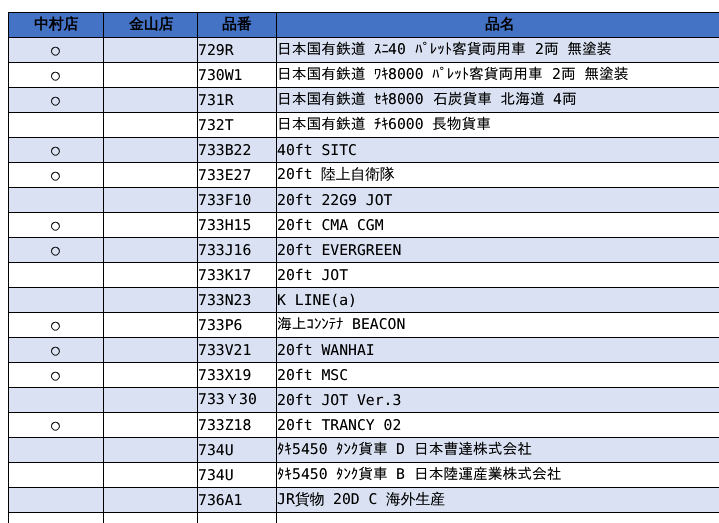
#include "include/core/SkBlurTypes.h"
#include "include/core/SkCanvas.h"
#include "include/core/SkData.h"
#include "include/core/SkFont.h"
#include "include/core/SkFontMgr.h"
#include "include/core/SkImage.h"
#include "include/core/SkMaskFilter.h"
#include "include/core/SkPaint.h"
#include "include/core/SkPathBuilder.h"
#include "include/core/SkTextBlob.h"
#include "include/effects/SkDashPathEffect.h"
#include "include/effects/SkGradientShader.h"
#include "include/utils/SkParsePath.h"

extern sk_sp<SkFontMgr> fontMgr;

static SkFont font(const char* family, int weight, float size, bool italic = false) {
    SkFontStyle style(weight, SkFontStyle::kNormal_Width,
        italic ? SkFontStyle::kItalic_Slant : SkFontStyle::kUpright_Slant);
    SkFont result(fontMgr->matchFamilyStyle(family, style), size);
    result.setSubpixel(true);
    return result;
}

static void drawLabel(SkCanvas* canvas, const char* s, float x, float y, const SkFont& font, SkColor color) {
    SkPaint ink(SkColor4f::FromColor(color));
    ink.setAntiAlias(true);
    canvas->drawString(s, x, y, font, ink);
}

static void drawTracked(SkCanvas* canvas, const char* s, float x, float y, const SkFont& font, const SkPaint& ink, float letter, float word) {
    std::vector<SkGlyphID> glyphs(font.countText(s, strlen(s), SkTextEncoding::kUTF8));
    std::vector<float> xs(glyphs.size());
    font.textToGlyphs(s, strlen(s), SkTextEncoding::kUTF8, glyphs);
    font.getXPos(glyphs, xs, x);
    float extra = 0;
    for (size_t i = 0; i < glyphs.size(); i++) {
        xs[i] += extra;
        extra += letter + word * (glyphs[i] == font.unicharToGlyph(' '));
    }
    canvas->drawTextBlob(SkTextBlob::MakeFromPosHGlyphs(glyphs, xs, y, font), 0, 0, ink);
}

static void fillRect(SkCanvas* canvas, float x, float y, float w, float h, SkColor color) {
    SkPaint ink(SkColor4f::FromColor(color));
    ink.setAntiAlias(true);
    canvas->drawRect(SkRect::MakeXYWH(x, y, w, h), ink);
}

void draw(SkCanvas* canvas) {
    SkPaint paint;
    paint.setAntiAlias(true);
    canvas->clear(0xFFFFFFFF);
    fillRect(canvas, 9, 13, 94, 24, 0xFF4472C4);
    fillRect(canvas, 276, 12, 443, 1, 0xFF000000);
    fillRect(canvas, 276, 37, 443, 1, 0xFF000000);
    fillRect(canvas, 276, 62, 443, 1, 0xFF000000);
    fillRect(canvas, 276, 87, 443, 1, 0xFF000000);
    fillRect(canvas, 276, 112, 443, 1, 0xFF000000);
    fillRect(canvas, 276, 137, 443, 1, 0xFF000000);
    fillRect(canvas, 276, 162, 443, 1, 0xFF000000);
    fillRect(canvas, 276, 187, 443, 1, 0xFF000000);
    fillRect(canvas, 276, 212, 443, 1, 0xFF000000);
    fillRect(canvas, 276, 237, 443, 1, 0xFF000000);
    fillRect(canvas, 276, 262, 443, 1, 0xFF000000);
    fillRect(canvas, 276, 287, 443, 1, 0xFF000000);
    fillRect(canvas, 276, 312, 443, 1, 0xFF000000);
    fillRect(canvas, 276, 337, 443, 1, 0xFF000000);
    fillRect(canvas, 276, 362, 443, 1, 0xFF000000);
    fillRect(canvas, 276, 387, 443, 1, 0xFF000000);
    fillRect(canvas, 276, 412, 443, 1, 0xFF000000);
    fillRect(canvas, 276, 437, 443, 1, 0xFF000000);
    fillRect(canvas, 276, 462, 443, 1, 0xFF000000);
    fillRect(canvas, 276, 487, 443, 1, 0xFF000000);
    fillRect(canvas, 276, 512, 443, 1, 0xFF000000);
    fillRect(canvas, 276, 512, 1, 11, 0xFF000000);
    fillRect(canvas, 197, 512, 80, 1, 0xFF000000);
    fillRect(canvas, 276, 487, 1, 26, 0xFF000000);
    fillRect(canvas, 197, 487, 80, 1, 0xFF000000);
    fillRect(canvas, 276, 462, 1, 26, 0xFF000000);
    fillRect(canvas, 197, 462, 80, 1, 0xFF000000);
    fillRect(canvas, 276, 437, 1, 26, 0xFF000000);
    fillRect(canvas, 197, 437, 80, 1, 0xFF000000);
    fillRect(canvas, 276, 412, 1, 26, 0xFF000000);
    fillRect(canvas, 197, 412, 80, 1, 0xFF000000);
    fillRect(canvas, 276, 387, 1, 26, 0xFF000000);
    fillRect(canvas, 197, 387, 80, 1, 0xFF000000);
    fillRect(canvas, 276, 362, 1, 26, 0xFF000000);
    fillRect(canvas, 197, 362, 80, 1, 0xFF000000);
    fillRect(canvas, 276, 337, 1, 26, 0xFF000000);
    fillRect(canvas, 197, 337, 80, 1, 0xFF000000);
    fillRect(canvas, 276, 312, 1, 26, 0xFF000000);
    fillRect(canvas, 197, 312, 80, 1, 0xFF000000);
    fillRect(canvas, 276, 287, 1, 26, 0xFF000000);
    fillRect(canvas, 197, 287, 80, 1, 0xFF000000);
    fillRect(canvas, 276, 262, 1, 26, 0xFF000000);
    fillRect(canvas, 197, 262, 80, 1, 0xFF000000);
    fillRect(canvas, 276, 237, 1, 26, 0xFF000000);
    fillRect(canvas, 197, 237, 80, 1, 0xFF000000);
    fillRect(canvas, 276, 212, 1, 26, 0xFF000000);
    fillRect(canvas, 197, 212, 80, 1, 0xFF000000);
    fillRect(canvas, 276, 187, 1, 26, 0xFF000000);
    fillRect(canvas, 197, 187, 80, 1, 0xFF000000);
    fillRect(canvas, 276, 162, 1, 26, 0xFF000000);
    fillRect(canvas, 197, 162, 80, 1, 0xFF000000);
    fillRect(canvas, 276, 137, 1, 26, 0xFF000000);
    fillRect(canvas, 197, 137, 80, 1, 0xFF000000);
    fillRect(canvas, 276, 112, 1, 26, 0xFF000000);
    fillRect(canvas, 197, 112, 80, 1, 0xFF000000);
    fillRect(canvas, 276, 87, 1, 26, 0xFF000000);
    fillRect(canvas, 197, 87, 80, 1, 0xFF000000);
    fillRect(canvas, 276, 62, 1, 26, 0xFF000000);
    fillRect(canvas, 197, 62, 80, 1, 0xFF000000);
    fillRect(canvas, 276, 37, 1, 26, 0xFF000000);
    fillRect(canvas, 197, 37, 80, 1, 0xFF000000);
    fillRect(canvas, 276, 12, 1, 26, 0xFF000000);
    fillRect(canvas, 197, 12, 80, 1, 0xFF000000);
    fillRect(canvas, 197, 512, 1, 11, 0xFF000000);
    fillRect(canvas, 103, 512, 95, 1, 0xFF000000);
    fillRect(canvas, 197, 487, 1, 26, 0xFF000000);
    fillRect(canvas, 103, 487, 95, 1, 0xFF000000);
    fillRect(canvas, 197, 462, 1, 26, 0xFF000000);
    fillRect(canvas, 103, 462, 95, 1, 0xFF000000);
    fillRect(canvas, 197, 437, 1, 26, 0xFF000000);
    fillRect(canvas, 103, 437, 95, 1, 0xFF000000);
    fillRect(canvas, 197, 412, 1, 26, 0xFF000000);
    fillRect(canvas, 103, 412, 95, 1, 0xFF000000);
    fillRect(canvas, 197, 387, 1, 26, 0xFF000000);
    fillRect(canvas, 103, 387, 95, 1, 0xFF000000);
    fillRect(canvas, 197, 362, 1, 26, 0xFF000000);
    fillRect(canvas, 103, 362, 95, 1, 0xFF000000);
    fillRect(canvas, 197, 337, 1, 26, 0xFF000000);
    fillRect(canvas, 103, 337, 95, 1, 0xFF000000);
    fillRect(canvas, 197, 312, 1, 26, 0xFF000000);
    fillRect(canvas, 103, 312, 95, 1, 0xFF000000);
    fillRect(canvas, 197, 287, 1, 26, 0xFF000000);
    fillRect(canvas, 103, 287, 95, 1, 0xFF000000);
    fillRect(canvas, 197, 262, 1, 26, 0xFF000000);
    fillRect(canvas, 103, 262, 95, 1, 0xFF000000);
    fillRect(canvas, 197, 237, 1, 26, 0xFF000000);
    fillRect(canvas, 103, 237, 95, 1, 0xFF000000);
    fillRect(canvas, 197, 212, 1, 26, 0xFF000000);
    fillRect(canvas, 103, 212, 95, 1, 0xFF000000);
    fillRect(canvas, 197, 187, 1, 26, 0xFF000000);
    fillRect(canvas, 103, 187, 95, 1, 0xFF000000);
    fillRect(canvas, 197, 162, 1, 26, 0xFF000000);
    fillRect(canvas, 103, 162, 95, 1, 0xFF000000);
    fillRect(canvas, 197, 137, 1, 26, 0xFF000000);
    fillRect(canvas, 103, 137, 95, 1, 0xFF000000);
    fillRect(canvas, 197, 112, 1, 26, 0xFF000000);
    fillRect(canvas, 103, 112, 95, 1, 0xFF000000);
    fillRect(canvas, 197, 87, 1, 26, 0xFF000000);
    fillRect(canvas, 103, 87, 95, 1, 0xFF000000);
    fillRect(canvas, 197, 62, 1, 26, 0xFF000000);
    fillRect(canvas, 103, 62, 95, 1, 0xFF000000);
    fillRect(canvas, 197, 37, 1, 26, 0xFF000000);
    fillRect(canvas, 103, 37, 95, 1, 0xFF000000);
    fillRect(canvas, 197, 12, 1, 26, 0xFF000000);
    fillRect(canvas, 103, 12, 95, 1, 0xFF000000);
    fillRect(canvas, 103, 512, 1, 11, 0xFF000000);
    fillRect(canvas, 8, 512, 96, 1, 0xFF000000);
    fillRect(canvas, 103, 487, 1, 26, 0xFF000000);
    fillRect(canvas, 8, 487, 96, 1, 0xFF000000);
    fillRect(canvas, 103, 462, 1, 26, 0xFF000000);
    fillRect(canvas, 8, 462, 96, 1, 0xFF000000);
    fillRect(canvas, 103, 437, 1, 26, 0xFF000000);
    fillRect(canvas, 8, 437, 96, 1, 0xFF000000);
    fillRect(canvas, 103, 412, 1, 26, 0xFF000000);
    fillRect(canvas, 8, 412, 96, 1, 0xFF000000);
    fillRect(canvas, 103, 387, 1, 26, 0xFF000000);
    fillRect(canvas, 8, 387, 96, 1, 0xFF000000);
    fillRect(canvas, 103, 362, 1, 26, 0xFF000000);
    fillRect(canvas, 8, 362, 96, 1, 0xFF000000);
    fillRect(canvas, 103, 337, 1, 26, 0xFF000000);
    fillRect(canvas, 8, 337, 96, 1, 0xFF000000);
    fillRect(canvas, 103, 312, 1, 26, 0xFF000000);
    fillRect(canvas, 8, 312, 96, 1, 0xFF000000);
    fillRect(canvas, 103, 287, 1, 26, 0xFF000000);
    fillRect(canvas, 8, 287, 96, 1, 0xFF000000);
    fillRect(canvas, 103, 262, 1, 26, 0xFF000000);
    fillRect(canvas, 8, 262, 96, 1, 0xFF000000);
    fillRect(canvas, 103, 237, 1, 26, 0xFF000000);
    fillRect(canvas, 8, 237, 96, 1, 0xFF000000);
    fillRect(canvas, 103, 212, 1, 26, 0xFF000000);
    fillRect(canvas, 8, 212, 96, 1, 0xFF000000);
    fillRect(canvas, 103, 187, 1, 26, 0xFF000000);
    fillRect(canvas, 8, 187, 96, 1, 0xFF000000);
    fillRect(canvas, 103, 162, 1, 26, 0xFF000000);
    fillRect(canvas, 8, 162, 96, 1, 0xFF000000);
    fillRect(canvas, 103, 137, 1, 26, 0xFF000000);
    fillRect(canvas, 8, 137, 96, 1, 0xFF000000);
    fillRect(canvas, 103, 112, 1, 26, 0xFF000000);
    fillRect(canvas, 8, 112, 96, 1, 0xFF000000);
    fillRect(canvas, 103, 87, 1, 26, 0xFF000000);
    fillRect(canvas, 8, 87, 96, 1, 0xFF000000);
    fillRect(canvas, 103, 62, 1, 26, 0xFF000000);
    fillRect(canvas, 8, 62, 96, 1, 0xFF000000);
    fillRect(canvas, 103, 37, 1, 26, 0xFF000000);
    fillRect(canvas, 8, 37, 96, 1, 0xFF000000);
    fillRect(canvas, 103, 12, 1, 26, 0xFF000000);
    fillRect(canvas, 8, 12, 96, 1, 0xFF000000);
    fillRect(canvas, 8, 512, 1, 11, 0xFF000000);
    fillRect(canvas, 8, 487, 1, 26, 0xFF000000);
    fillRect(canvas, 8, 462, 1, 26, 0xFF000000);
    fillRect(canvas, 8, 437, 1, 26, 0xFF000000);
    fillRect(canvas, 8, 412, 1, 26, 0xFF000000);
    fillRect(canvas, 8, 387, 1, 26, 0xFF000000);
    fillRect(canvas, 8, 362, 1, 26, 0xFF000000);
    fillRect(canvas, 8, 337, 1, 26, 0xFF000000);
    fillRect(canvas, 8, 312, 1, 26, 0xFF000000);
    fillRect(canvas, 8, 287, 1, 26, 0xFF000000);
    fillRect(canvas, 8, 262, 1, 26, 0xFF000000);
    fillRect(canvas, 8, 237, 1, 26, 0xFF000000);
    fillRect(canvas, 8, 212, 1, 26, 0xFF000000);
    fillRect(canvas, 8, 187, 1, 26, 0xFF000000);
    fillRect(canvas, 8, 162, 1, 26, 0xFF000000);
    fillRect(canvas, 8, 137, 1, 26, 0xFF000000);
    fillRect(canvas, 8, 112, 1, 26, 0xFF000000);
    fillRect(canvas, 8, 87, 1, 26, 0xFF000000);
    fillRect(canvas, 8, 62, 1, 26, 0xFF000000);
    fillRect(canvas, 8, 37, 1, 26, 0xFF000000);
    fillRect(canvas, 8, 12, 1, 26, 0xFF000000);
    SkFont font1 = font("WenQuanYi Zen Hei", 700, 14.75f);
    drawLabel(canvas, "中村店", 34, 29, font1, 0xFF000000);
    fillRect(canvas, 104, 13, 93, 24, 0xFF4472C4);
    drawLabel(canvas, "金山店", 129, 29, font1, 0xFF000000);
    fillRect(canvas, 198, 13, 78, 24, 0xFF4472C4);
    drawLabel(canvas, "品番", 222, 29, font1, 0xFF000000);
    fillRect(canvas, 277, 13, 442, 24, 0xFF4472C4);
    drawLabel(canvas, "品名", 485, 29, font1, 0xFF000000);
    fillRect(canvas, 9, 38, 94, 24, 0xFFD9E1F2);
    SkFont font2 = font("DejaVu Sans Mono", 400, 14.75f);
    drawLabel(canvas, "○", 51, 55, font2, 0xFF000000);
    fillRect(canvas, 104, 38, 93, 24, 0xFFD9E1F2);
    fillRect(canvas, 198, 38, 78, 24, 0xFFD9E1F2);
    drawLabel(canvas, "729R", 198, 55, font2, 0xFF000000);
    fillRect(canvas, 277, 38, 442, 24, 0xFFD9E1F2);
    SkFont font3 = font("IPAGothic", 400, 14.75f);
    drawLabel(canvas, "日本国有鉄道", 277, 54, font3, 0xFF000000);
    drawLabel(canvas, "ｽﾆ", 374, 54, font3, 0xFF000000);
    drawLabel(canvas, "40", 388, 54, font2, 0xFF000000);
    drawLabel(canvas, "ﾊﾟﾚｯﾄ客貨両用車", 415, 54, font3, 0xFF000000);
    drawLabel(canvas, "2", 535, 54, font2, 0xFF000000);
    paint.setColor(0xFF000000);
    drawTracked(canvas, "両 無塗装", 544, 54, font3, paint, 0, 1);
    drawLabel(canvas, "○", 51, 80, font2, 0xFF000000);
    drawLabel(canvas, "730W1", 198, 80, font2, 0xFF000000);
    drawTracked(canvas, "日本国有鉄道 ﾜｷ", 277, 79, font3, paint, 0, 1);
    drawLabel(canvas, "8000", 388, 79, font2, 0xFF000000);
    drawLabel(canvas, "ﾊﾟﾚｯﾄ客貨両用車", 432, 79, font3, 0xFF000000);
    drawLabel(canvas, "2", 552, 79, font2, 0xFF000000);
    drawTracked(canvas, "両 無塗装", 561, 79, font3, paint, 0, 1);
    fillRect(canvas, 9, 88, 94, 24, 0xFFD9E1F2);
    drawLabel(canvas, "○", 51, 105, font2, 0xFF000000);
    fillRect(canvas, 104, 88, 93, 24, 0xFFD9E1F2);
    fillRect(canvas, 198, 88, 78, 24, 0xFFD9E1F2);
    drawLabel(canvas, "731R", 198, 105, font2, 0xFF000000);
    fillRect(canvas, 277, 88, 442, 24, 0xFFD9E1F2);
    drawLabel(canvas, "日本国有鉄道", 277, 104, font3, 0xFF000000);
    drawLabel(canvas, "ｾｷ", 374, 104, font3, 0xFF000000);
    drawLabel(canvas, "8000", 388, 104, font2, 0xFF000000);
    drawTracked(canvas, "石炭貨車 北海道", 433, 104, font3, paint, 0, 1);
    drawLabel(canvas, "4", 553, 104, font2, 0xFF000000);
    drawLabel(canvas, "両", 562, 104, font3, 0xFF000000);
    drawLabel(canvas, "732T", 198, 130, font2, 0xFF000000);
    drawTracked(canvas, "日本国有鉄道 ﾁｷ", 277, 129, font3, paint, 0, 1);
    drawLabel(canvas, "6000", 388, 129, font2, 0xFF000000);
    drawLabel(canvas, "長物貨車", 432, 129, font3, 0xFF000000);
    fillRect(canvas, 9, 138, 94, 24, 0xFFD9E1F2);
    drawLabel(canvas, "○", 51, 155, font2, 0xFF000000);
    fillRect(canvas, 104, 138, 93, 24, 0xFFD9E1F2);
    fillRect(canvas, 198, 138, 78, 24, 0xFFD9E1F2);
    drawLabel(canvas, "733B22", 198, 155, font2, 0xFF000000);
    fillRect(canvas, 277, 138, 442, 24, 0xFFD9E1F2);
    drawLabel(canvas, "40ft SITC", 277, 155, font2, 0xFF000000);
    drawLabel(canvas, "○", 51, 180, font2, 0xFF000000);
    drawLabel(canvas, "733E27", 198, 180, font2, 0xFF000000);
    drawLabel(canvas, "20ft", 277, 179, font2, 0xFF000000);
    SkFont font4 = font("WenQuanYi Zen Hei", 500, 14.75f);
    drawLabel(canvas, "陸上自衛隊", 321, 179, font4, 0xFF000000);
    fillRect(canvas, 9, 188, 94, 24, 0xFFD9E1F2);
    fillRect(canvas, 104, 188, 93, 24, 0xFFD9E1F2);
    fillRect(canvas, 198, 188, 78, 24, 0xFFD9E1F2);
    drawLabel(canvas, "733F10", 198, 205, font2, 0xFF000000);
    fillRect(canvas, 277, 188, 442, 24, 0xFFD9E1F2);
    drawLabel(canvas, "20ft 22G9 JOT", 277, 205, font2, 0xFF000000);
    drawLabel(canvas, "○", 51, 230, font2, 0xFF000000);
    drawLabel(canvas, "733H15", 198, 230, font2, 0xFF000000);
    drawLabel(canvas, "20ft CMA CGM", 277, 230, font2, 0xFF000000);
    fillRect(canvas, 9, 238, 94, 24, 0xFFD9E1F2);
    drawLabel(canvas, "○", 51, 255, font2, 0xFF000000);
    fillRect(canvas, 104, 238, 93, 24, 0xFFD9E1F2);
    fillRect(canvas, 198, 238, 78, 24, 0xFFD9E1F2);
    drawLabel(canvas, "733J16", 198, 255, font2, 0xFF000000);
    fillRect(canvas, 277, 238, 442, 24, 0xFFD9E1F2);
    drawLabel(canvas, "20ft EVERGREEN", 277, 255, font2, 0xFF000000);
    drawLabel(canvas, "733K17", 198, 280, font2, 0xFF000000);
    drawLabel(canvas, "20ft JOT", 277, 280, font2, 0xFF000000);
    fillRect(canvas, 9, 288, 94, 24, 0xFFD9E1F2);
    fillRect(canvas, 104, 288, 93, 24, 0xFFD9E1F2);
    fillRect(canvas, 198, 288, 78, 24, 0xFFD9E1F2);
    drawLabel(canvas, "733N23", 198, 305, font2, 0xFF000000);
    fillRect(canvas, 277, 288, 442, 24, 0xFFD9E1F2);
    drawLabel(canvas, "K LINE(a)", 277, 305, font2, 0xFF000000);
    drawLabel(canvas, "○", 51, 330, font2, 0xFF000000);
    drawLabel(canvas, "733P6", 198, 330, font2, 0xFF000000);
    drawLabel(canvas, "海上ｺﾝﾝﾃﾅ", 277, 329, font3, 0xFF000000);
    drawLabel(canvas, "BEACON", 352, 329, font2, 0xFF000000);
    fillRect(canvas, 9, 338, 94, 24, 0xFFD9E1F2);
    drawLabel(canvas, "○", 51, 355, font2, 0xFF000000);
    fillRect(canvas, 104, 338, 93, 24, 0xFFD9E1F2);
    fillRect(canvas, 198, 338, 78, 24, 0xFFD9E1F2);
    drawLabel(canvas, "733V21", 198, 355, font2, 0xFF000000);
    fillRect(canvas, 277, 338, 442, 24, 0xFFD9E1F2);
    drawLabel(canvas, "20ft WANHAI", 277, 355, font2, 0xFF000000);
    drawLabel(canvas, "○", 51, 380, font2, 0xFF000000);
    drawLabel(canvas, "733X19", 198, 380, font2, 0xFF000000);
    drawLabel(canvas, "20ft MSC", 277, 380, font2, 0xFF000000);
    fillRect(canvas, 9, 388, 94, 24, 0xFFD9E1F2);
    fillRect(canvas, 104, 388, 93, 24, 0xFFD9E1F2);
    fillRect(canvas, 198, 388, 78, 24, 0xFFD9E1F2);
    drawLabel(canvas, "733", 198, 404, font2, 0xFF000000);
    drawLabel(canvas, "Ｙ", 225, 404, font4, 0xFF000000);
    drawLabel(canvas, "30", 239, 404, font2, 0xFF000000);
    fillRect(canvas, 277, 388, 442, 24, 0xFFD9E1F2);
    drawLabel(canvas, "20ft JOT Ver.3", 277, 405, font2, 0xFF000000);
    drawLabel(canvas, "○", 51, 430, font2, 0xFF000000);
    drawLabel(canvas, "733Z18", 198, 430, font2, 0xFF000000);
    drawLabel(canvas, "20ft TRANCY 02", 277, 430, font2, 0xFF000000);
    fillRect(canvas, 9, 438, 94, 24, 0xFFD9E1F2);
    fillRect(canvas, 104, 438, 93, 24, 0xFFD9E1F2);
    fillRect(canvas, 198, 438, 78, 24, 0xFFD9E1F2);
    drawLabel(canvas, "734U", 198, 455, font2, 0xFF000000);
    fillRect(canvas, 277, 438, 442, 24, 0xFFD9E1F2);
    drawLabel(canvas, "ﾀｷ", 277, 454, font3, 0xFF000000);
    drawLabel(canvas, "5450", 292, 454, font2, 0xFF000000);
    drawLabel(canvas, "ﾀﾝｸ貨車", 336, 454, font3, 0xFF000000);
    drawLabel(canvas, "D", 396, 454, font2, 0xFF000000);
    drawLabel(canvas, "日本曹達株式会社", 414, 454, font3, 0xFF000000);
    drawLabel(canvas, "734U", 198, 480, font2, 0xFF000000);
    drawLabel(canvas, "ﾀｷ", 277, 479, font3, 0xFF000000);
    drawLabel(canvas, "5450", 292, 479, font2, 0xFF000000);
    drawLabel(canvas, "ﾀﾝｸ貨車", 336, 479, font3, 0xFF000000);
    drawLabel(canvas, "B", 396, 479, font2, 0xFF000000);
    drawLabel(canvas, "日本陸運産業株式会社", 414, 479, font3, 0xFF000000);
    fillRect(canvas, 9, 488, 94, 24, 0xFFD9E1F2);
    fillRect(canvas, 104, 488, 93, 24, 0xFFD9E1F2);
    fillRect(canvas, 198, 488, 78, 24, 0xFFD9E1F2);
    drawLabel(canvas, "736A1", 198, 505, font2, 0xFF000000);
    fillRect(canvas, 277, 488, 442, 24, 0xFFD9E1F2);
    drawLabel(canvas, "JR", 277, 504, font2, 0xFF000000);
    drawLabel(canvas, "貨物", 295, 504, font4, 0xFF000000);
    drawLabel(canvas, "20D C", 333, 504, font2, 0xFF000000);
    drawLabel(canvas, "海外生産", 386, 504, font4, 0xFF000000);
}
